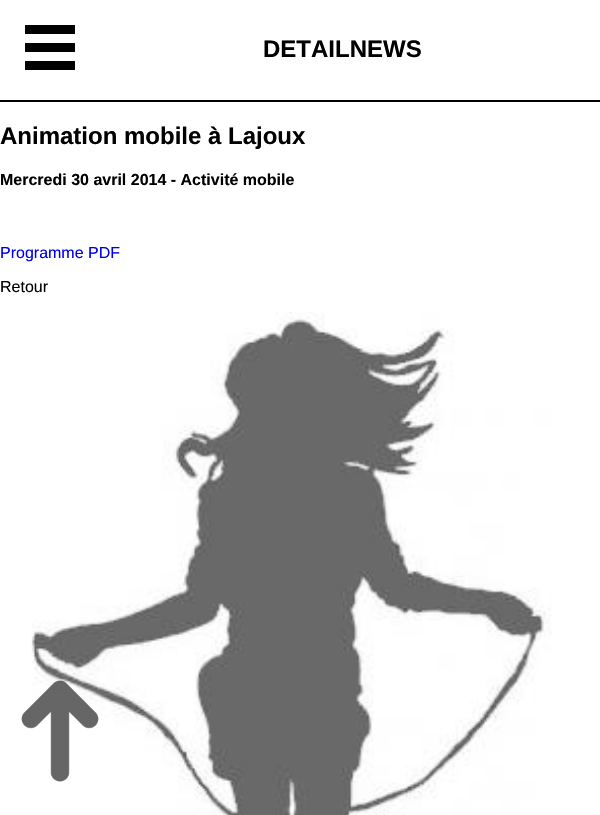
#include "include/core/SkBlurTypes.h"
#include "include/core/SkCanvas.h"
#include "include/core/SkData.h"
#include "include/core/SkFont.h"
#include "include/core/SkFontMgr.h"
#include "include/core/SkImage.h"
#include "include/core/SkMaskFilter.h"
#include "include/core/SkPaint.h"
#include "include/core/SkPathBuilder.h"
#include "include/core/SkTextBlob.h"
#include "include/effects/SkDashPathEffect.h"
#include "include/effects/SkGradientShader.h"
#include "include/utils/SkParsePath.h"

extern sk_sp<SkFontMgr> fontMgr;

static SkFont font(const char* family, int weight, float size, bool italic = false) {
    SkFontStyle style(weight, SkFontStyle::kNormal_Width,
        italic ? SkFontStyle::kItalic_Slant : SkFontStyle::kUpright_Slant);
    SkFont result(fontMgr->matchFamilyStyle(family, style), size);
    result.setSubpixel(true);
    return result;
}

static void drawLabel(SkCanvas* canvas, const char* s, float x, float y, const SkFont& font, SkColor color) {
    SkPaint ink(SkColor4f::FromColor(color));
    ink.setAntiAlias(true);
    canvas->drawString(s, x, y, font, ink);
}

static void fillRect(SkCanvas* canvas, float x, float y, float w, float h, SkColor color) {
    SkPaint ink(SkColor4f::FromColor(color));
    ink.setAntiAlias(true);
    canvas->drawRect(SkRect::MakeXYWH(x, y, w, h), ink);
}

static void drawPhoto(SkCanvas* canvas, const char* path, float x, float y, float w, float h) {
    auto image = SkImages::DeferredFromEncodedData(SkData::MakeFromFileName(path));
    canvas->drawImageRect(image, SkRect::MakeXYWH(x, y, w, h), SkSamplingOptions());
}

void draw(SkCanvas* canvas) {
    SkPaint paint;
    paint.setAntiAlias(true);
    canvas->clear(0xFFFFFFFF);
    fillRect(canvas, 0, 100, 600, 2, 0xFF000000);
    fillRect(canvas, 25, 25, 50, 9, 0xFF000000);
    fillRect(canvas, 25, 43, 50, 9, 0xFF000000);
    fillRect(canvas, 25, 61, 50, 9, 0xFF000000);
    SkFont font1 = font("Liberation Sans", 700, 24);
    drawLabel(canvas, "DETAILNEWS", 263, 57, font1, 0xFF000000);
    drawLabel(canvas, "Animation mobile à Lajoux", 0, 144, font1, 0xFF000000);
    SkFont font2 = font("Liberation Sans", 700, 16);
    drawLabel(canvas, "Mercredi 30 avril 2014 - Activité mobile", 0, 185, font2, 0xFF000000);
    SkFont font3 = font("Liberation Sans", 400, 16);
    drawLabel(canvas, "Programme PDF", 0, 258, font3, 0xFF0000EE);
    drawLabel(canvas, "Retour", 0, 292, font3, 0xFF000000);
    drawPhoto(canvas, "assets/img1.png", 31, 312, 521, 503);
    drawPhoto(canvas, "assets/img2.png", 21, 680, 78, 102);
}
